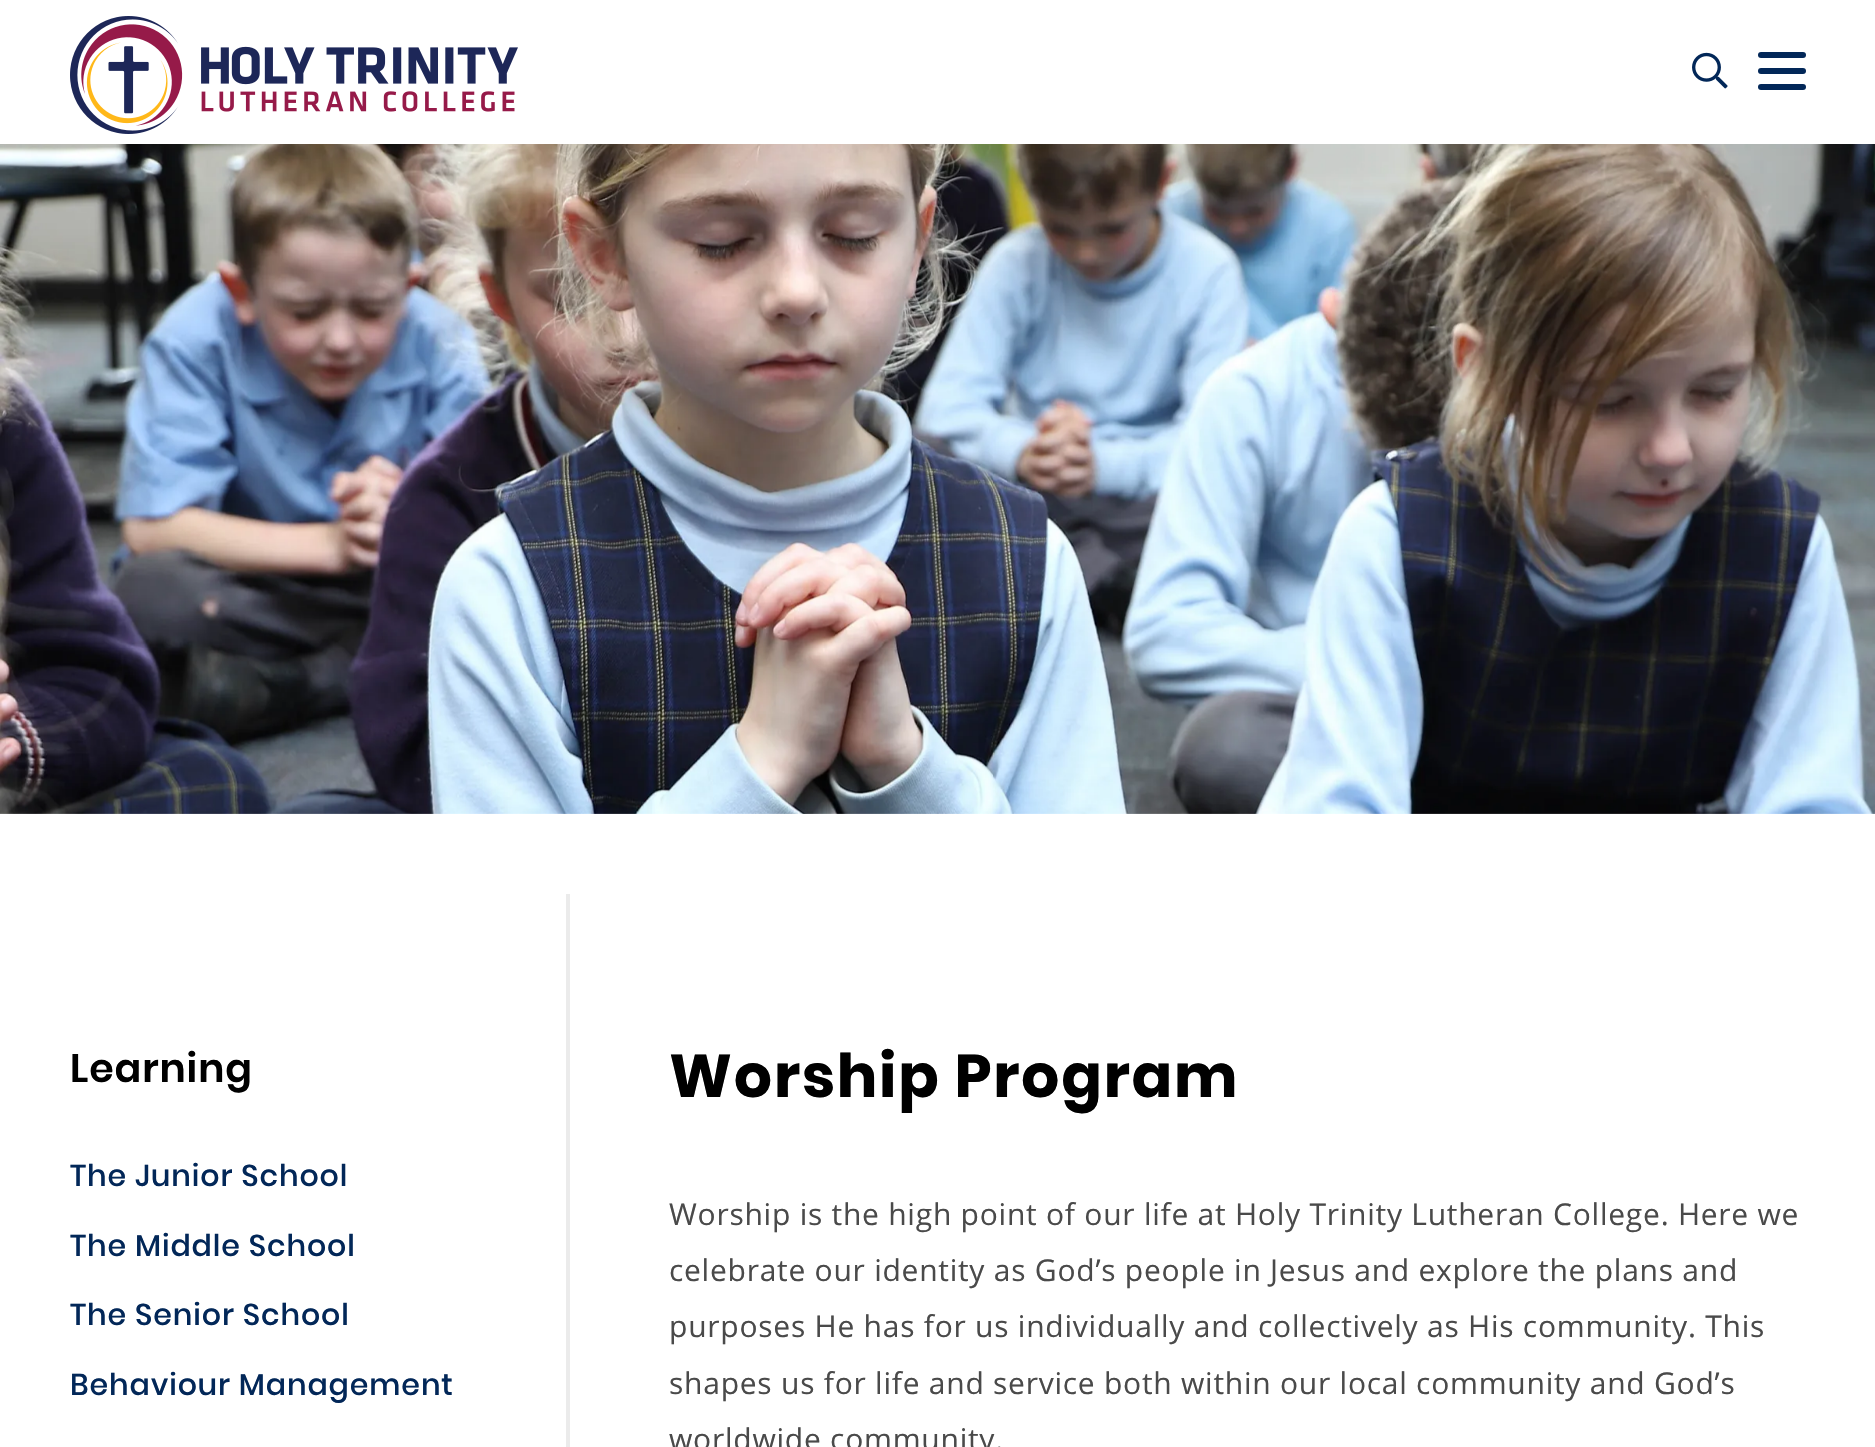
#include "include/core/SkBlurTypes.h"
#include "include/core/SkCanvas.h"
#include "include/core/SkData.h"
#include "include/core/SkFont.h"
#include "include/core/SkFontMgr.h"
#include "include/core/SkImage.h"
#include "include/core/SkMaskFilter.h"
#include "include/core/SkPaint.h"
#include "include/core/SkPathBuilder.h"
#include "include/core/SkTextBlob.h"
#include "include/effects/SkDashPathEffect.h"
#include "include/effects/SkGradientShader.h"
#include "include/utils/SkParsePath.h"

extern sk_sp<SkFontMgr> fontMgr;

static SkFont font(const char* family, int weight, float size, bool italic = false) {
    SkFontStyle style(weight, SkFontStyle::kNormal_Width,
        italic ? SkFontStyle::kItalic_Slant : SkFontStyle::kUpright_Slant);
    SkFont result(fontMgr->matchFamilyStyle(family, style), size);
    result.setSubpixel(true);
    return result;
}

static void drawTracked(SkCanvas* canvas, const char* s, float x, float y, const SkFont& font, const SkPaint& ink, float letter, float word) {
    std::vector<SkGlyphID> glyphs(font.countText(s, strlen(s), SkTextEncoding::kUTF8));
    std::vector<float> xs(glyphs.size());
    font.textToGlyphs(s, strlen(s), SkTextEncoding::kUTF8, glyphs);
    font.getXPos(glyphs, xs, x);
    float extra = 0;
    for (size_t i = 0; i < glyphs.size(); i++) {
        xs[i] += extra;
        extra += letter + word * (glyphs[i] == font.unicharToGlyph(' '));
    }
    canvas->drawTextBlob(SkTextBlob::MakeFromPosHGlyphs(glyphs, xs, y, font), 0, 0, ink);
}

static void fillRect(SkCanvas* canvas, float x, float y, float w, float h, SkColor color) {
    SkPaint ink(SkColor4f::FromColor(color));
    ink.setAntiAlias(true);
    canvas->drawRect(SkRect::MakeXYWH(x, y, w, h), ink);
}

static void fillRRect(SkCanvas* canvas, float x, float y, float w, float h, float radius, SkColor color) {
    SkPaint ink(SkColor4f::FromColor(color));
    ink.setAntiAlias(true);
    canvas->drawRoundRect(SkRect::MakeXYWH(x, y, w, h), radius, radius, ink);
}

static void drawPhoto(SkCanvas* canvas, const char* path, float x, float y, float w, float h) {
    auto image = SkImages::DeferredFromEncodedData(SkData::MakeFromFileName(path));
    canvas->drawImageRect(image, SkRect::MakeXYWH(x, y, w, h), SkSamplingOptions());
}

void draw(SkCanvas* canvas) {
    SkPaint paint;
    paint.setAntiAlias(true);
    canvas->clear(0xFFFFFFFF);
    drawPhoto(canvas, "assets/img1.png", 70, 16, 448, 118);
    drawPhoto(canvas, "assets/img2.png", 1692, 52, 36, 37);
    fillRRect(canvas, 1758, 52, 48, 6, 3, 0xFF022758);
    fillRRect(canvas, 1758, 68, 48, 6, 3, 0xFF022758);
    fillRRect(canvas, 1758, 84, 48, 6, 3, 0xFF022758);
    drawPhoto(canvas, "assets/img3.png", 0, 144, 1875, 670);
    SkFont font1 = font("Poppins", 600, 39.5f);
    paint.setColor(0xFF000000);
    drawTracked(canvas, "Learning", 70, 1082, font1, paint, 0.9f, 0);
    SkFont font2 = font("Poppins", 500, 30);
    paint.setColor(0xFF022758);
    drawTracked(canvas, "The Junior School", 70, 1186, font2, paint, 0.9f, 0);
    drawTracked(canvas, "The Middle School", 70, 1256, font2, paint, 0.9f, 0);
    drawTracked(canvas, "The Senior School", 70, 1325, font2, paint, 0.9f, 0);
    drawTracked(canvas, "Behaviour Management", 70, 1395, font2, paint, 0.9f, 0);
    fillRect(canvas, 566, 894, 4, 553, 0xFFEBEBEB);
    SkFont font3 = font("Poppins", 700, 60);
    paint.setColor(0xFF000000);
    drawTracked(canvas, "Worship Program", 669, 1097, font3, paint, 1.75f, 0);
    SkFont font4 = font("Open Sans", 400, 30);
    paint.setColor(0xFF4A4A4A);
    drawTracked(canvas, "Worship is the high point of our life at Holy Trinity Lutheran College. Here we", 669, 1225, font4, paint, 0.75f, 0);
    drawTracked(canvas, "celebrate our identity as God’s people in Jesus and explore the plans and", 669, 1281, font4, paint, 0.75f, 0);
    drawTracked(canvas, "purposes He has for us individually and collectively as His community. This", 669, 1337, font4, paint, 0.75f, 0);
    drawTracked(canvas, "shapes us for life and service both within our local community and God’s", 669, 1394, font4, paint, 0.75f, 0);
    drawTracked(canvas, "worldwide community.", 669, 1450, font4, paint, 0.75f, 0);
}
